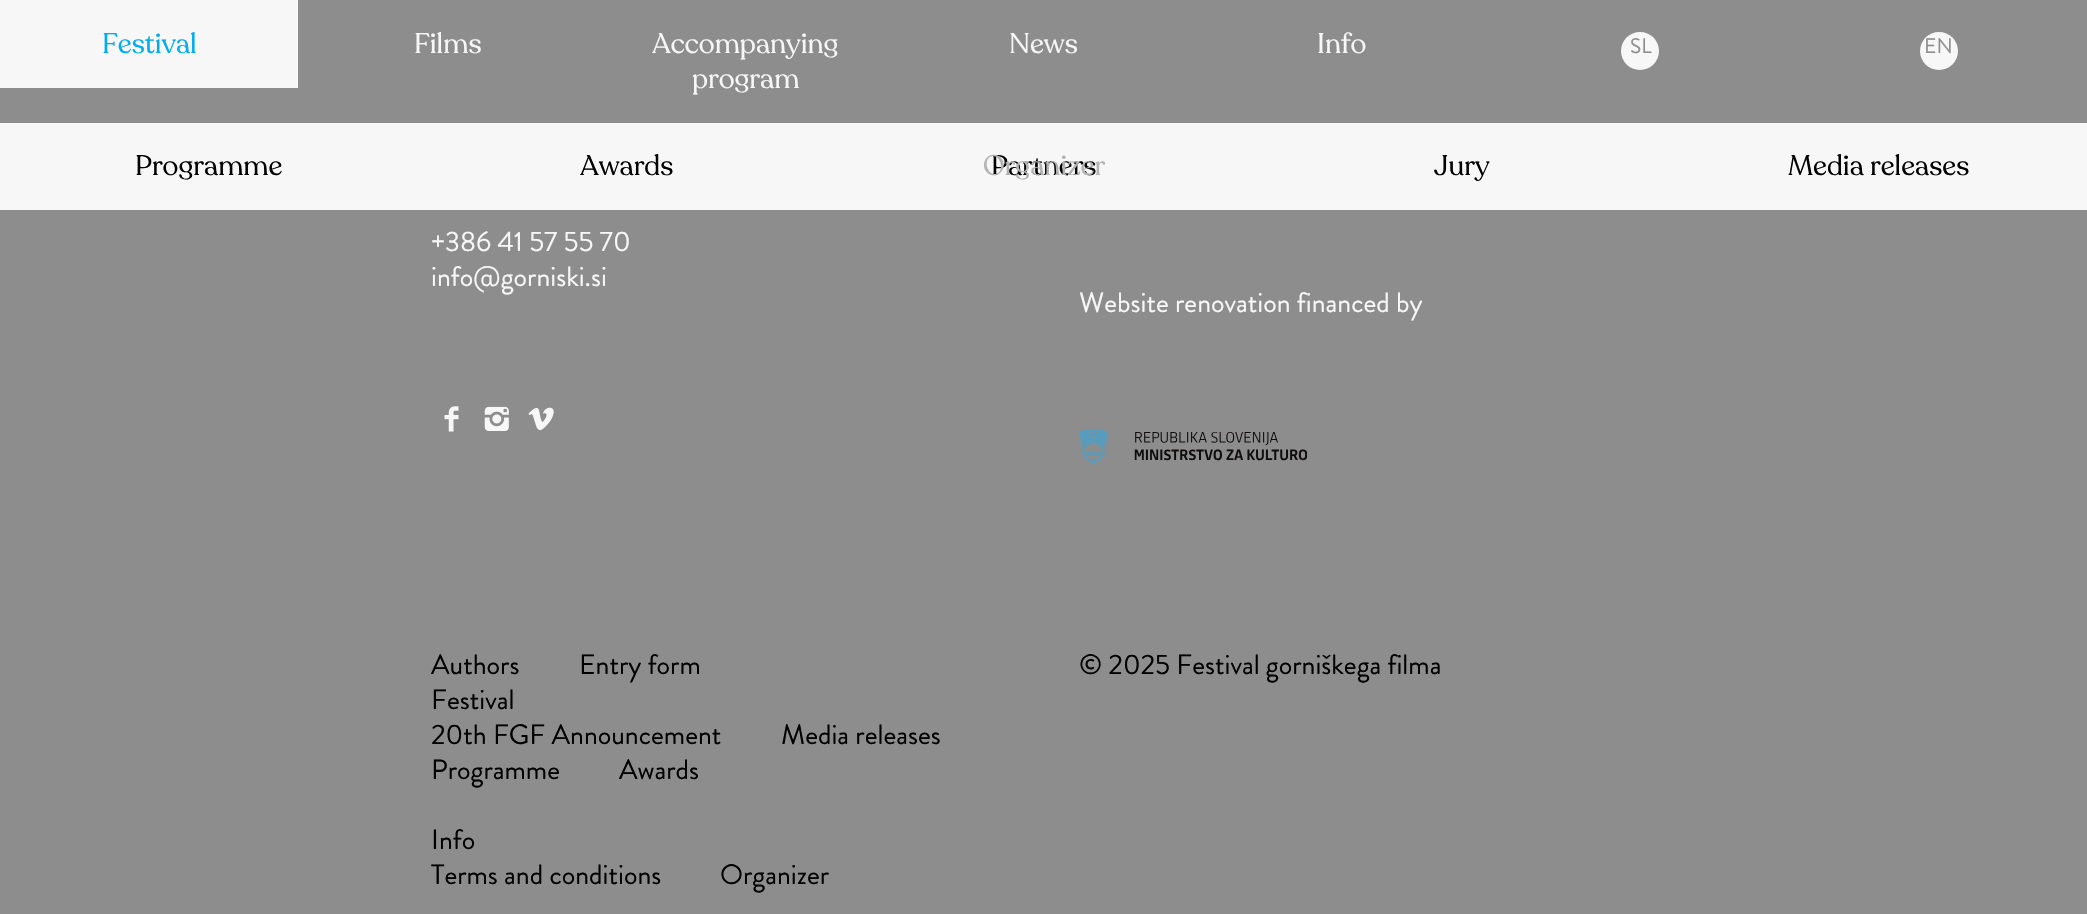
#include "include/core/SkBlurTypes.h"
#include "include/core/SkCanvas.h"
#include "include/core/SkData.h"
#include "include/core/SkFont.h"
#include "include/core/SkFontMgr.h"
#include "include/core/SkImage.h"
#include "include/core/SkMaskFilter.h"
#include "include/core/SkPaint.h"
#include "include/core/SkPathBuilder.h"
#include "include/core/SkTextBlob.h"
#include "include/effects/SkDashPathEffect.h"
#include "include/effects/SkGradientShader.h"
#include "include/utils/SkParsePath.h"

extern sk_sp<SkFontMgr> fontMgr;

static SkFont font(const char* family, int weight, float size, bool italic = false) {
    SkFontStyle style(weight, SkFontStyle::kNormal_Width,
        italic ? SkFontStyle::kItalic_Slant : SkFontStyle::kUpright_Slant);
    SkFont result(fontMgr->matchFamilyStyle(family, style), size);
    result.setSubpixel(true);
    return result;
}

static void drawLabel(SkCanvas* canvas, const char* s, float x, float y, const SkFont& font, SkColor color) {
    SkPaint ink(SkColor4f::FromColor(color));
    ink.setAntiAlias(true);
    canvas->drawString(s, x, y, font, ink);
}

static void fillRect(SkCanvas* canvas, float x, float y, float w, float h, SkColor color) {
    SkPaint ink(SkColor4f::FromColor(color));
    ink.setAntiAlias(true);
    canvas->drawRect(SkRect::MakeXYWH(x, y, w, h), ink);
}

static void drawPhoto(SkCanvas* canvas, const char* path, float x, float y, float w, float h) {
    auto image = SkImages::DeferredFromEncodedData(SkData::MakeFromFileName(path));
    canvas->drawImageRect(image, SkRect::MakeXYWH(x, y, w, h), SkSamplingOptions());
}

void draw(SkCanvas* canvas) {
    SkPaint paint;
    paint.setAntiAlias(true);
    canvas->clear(0xFF8D8D8D);
    fillRect(canvas, 0, 0, 298, 88, 0xFFF7F7F7);
    SkFont font1 = font("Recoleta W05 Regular", 400, 28);
    drawLabel(canvas, "Festival", 102, 53, font1, 0xFF00ADEF);
    fillRect(canvas, 0, 123, 2087, 87, 0xFFF7F7F7);
    drawLabel(canvas, "Programme", 135, 175, font1, 0xFF000000);
    drawLabel(canvas, "Awards", 580, 175, font1, 0xFF000000);
    drawLabel(canvas, "Partners", 991, 175, font1, 0xFF000000);
    drawLabel(canvas, "Jury", 1434, 175, font1, 0xFF000000);
    drawLabel(canvas, "Media releases", 1788, 175, font1, 0xFF000000);
    drawLabel(canvas, "Films", 414, 53, font1, 0xFFF7F7F7);
    drawLabel(canvas, "Accompanying", 652, 53, font1, 0xFFF7F7F7);
    drawLabel(canvas, "program", 692, 88, font1, 0xFFF7F7F7);
    drawLabel(canvas, "Info", 1317, 53, font1, 0xFFF7F7F7);
    drawLabel(canvas, "Organizer", 983, 175, font1, 0xFFB3B3B3);
    drawLabel(canvas, "News", 1009, 53, font1, 0xFFF7F7F7);
    paint.setColor(0xFFF7F7F7);
    canvas->drawCircle(1640, 51, 19, paint);
    SkFont font2 = font("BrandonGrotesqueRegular", 400, 21);
    drawLabel(canvas, "SL", 1630, 53, font2, 0xFF8D8D8D);
    canvas->drawCircle(1939, 51, 19, paint);
    drawLabel(canvas, "EN", 1924, 53, font2, 0xFF8D8D8D);
    SkFont font3 = font("BrandonGrotesqueRegular", 400, 28);
    drawLabel(canvas, "+386 41 57 55 70", 431, 251, font3, 0xFFF7F7F7);
    drawLabel(canvas, "info@gorniski.si", 431, 286, font3, 0xFFF7F7F7);
    drawPhoto(canvas, "assets/img1.png", 444, 406, 15, 26);
    drawPhoto(canvas, "assets/img2.png", 484, 406, 25, 25);
    drawPhoto(canvas, "assets/img3.png", 528, 407, 26, 24);
    drawLabel(canvas, "Website renovation financed by", 1079, 312, font3, 0xFFF7F7F7);
    drawPhoto(canvas, "assets/img4.png", 1080, 429, 227, 35);
    drawLabel(canvas, "Authors", 431, 674, font3, 0xFF000000);
    drawLabel(canvas, "Entry form", 579, 674, font3, 0xFF000000);
    drawLabel(canvas, "Festival", 431, 709, font3, 0xFF000000);
    drawLabel(canvas, "20th FGF Announcement", 431, 744, font3, 0xFF000000);
    drawLabel(canvas, "Media releases", 781, 744, font3, 0xFF000000);
    drawLabel(canvas, "Programme", 431, 779, font3, 0xFF000000);
    drawLabel(canvas, "Awards", 619, 779, font3, 0xFF000000);
    drawLabel(canvas, "Info", 431, 849, font3, 0xFF000000);
    drawLabel(canvas, "Terms and conditions", 431, 884, font3, 0xFF000000);
    drawLabel(canvas, "Organizer", 720, 884, font3, 0xFF000000);
    drawLabel(canvas, "© 2025 Festival gorniškega filma", 1079, 674, font3, 0xFF000000);
}
